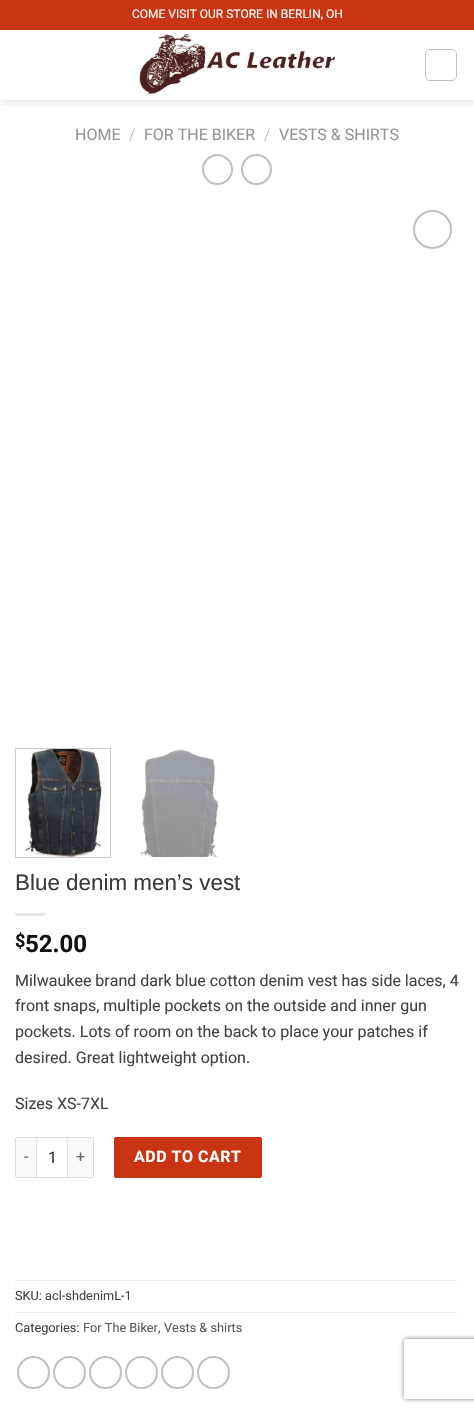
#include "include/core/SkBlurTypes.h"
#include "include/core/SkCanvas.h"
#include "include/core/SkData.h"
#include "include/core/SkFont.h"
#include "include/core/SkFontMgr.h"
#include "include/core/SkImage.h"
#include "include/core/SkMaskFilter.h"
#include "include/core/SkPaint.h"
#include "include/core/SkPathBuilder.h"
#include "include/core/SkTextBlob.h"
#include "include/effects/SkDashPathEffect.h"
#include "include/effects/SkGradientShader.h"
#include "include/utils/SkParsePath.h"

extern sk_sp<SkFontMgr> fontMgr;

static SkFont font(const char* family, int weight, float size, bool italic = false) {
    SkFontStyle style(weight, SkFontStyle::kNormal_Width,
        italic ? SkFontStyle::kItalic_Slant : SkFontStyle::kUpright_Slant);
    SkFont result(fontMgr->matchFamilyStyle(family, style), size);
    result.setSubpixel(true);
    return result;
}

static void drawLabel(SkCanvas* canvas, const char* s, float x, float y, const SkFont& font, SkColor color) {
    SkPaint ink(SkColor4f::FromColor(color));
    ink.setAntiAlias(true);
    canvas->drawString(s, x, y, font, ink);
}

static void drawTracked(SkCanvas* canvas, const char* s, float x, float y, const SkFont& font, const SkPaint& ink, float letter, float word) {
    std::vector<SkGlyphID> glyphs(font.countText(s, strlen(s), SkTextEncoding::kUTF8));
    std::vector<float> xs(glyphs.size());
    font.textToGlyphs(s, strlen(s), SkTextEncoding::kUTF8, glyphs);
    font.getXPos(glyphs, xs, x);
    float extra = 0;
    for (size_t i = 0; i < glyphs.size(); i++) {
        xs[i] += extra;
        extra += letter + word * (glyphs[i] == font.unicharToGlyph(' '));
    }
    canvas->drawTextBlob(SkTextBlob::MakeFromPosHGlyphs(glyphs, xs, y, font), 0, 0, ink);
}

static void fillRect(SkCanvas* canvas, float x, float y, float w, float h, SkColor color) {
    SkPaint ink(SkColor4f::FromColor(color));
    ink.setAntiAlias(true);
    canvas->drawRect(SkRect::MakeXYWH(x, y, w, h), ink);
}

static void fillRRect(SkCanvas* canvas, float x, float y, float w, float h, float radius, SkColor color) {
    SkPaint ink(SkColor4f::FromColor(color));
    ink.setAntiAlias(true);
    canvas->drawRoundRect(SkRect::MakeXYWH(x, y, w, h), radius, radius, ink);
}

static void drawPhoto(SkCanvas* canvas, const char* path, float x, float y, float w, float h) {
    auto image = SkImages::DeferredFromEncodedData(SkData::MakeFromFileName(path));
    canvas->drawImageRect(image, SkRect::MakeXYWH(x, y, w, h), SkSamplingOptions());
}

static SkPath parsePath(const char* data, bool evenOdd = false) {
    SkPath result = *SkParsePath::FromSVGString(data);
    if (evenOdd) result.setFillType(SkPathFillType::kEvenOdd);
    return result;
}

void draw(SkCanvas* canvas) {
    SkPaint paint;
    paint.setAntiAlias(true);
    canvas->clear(0xFFFFFFFF);
    canvas->save();
    canvas->clipRect(SkRect::MakeXYWH(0, 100, 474, 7));
    paint.setColor(0x26000000);
    paint.setMaskFilter(SkMaskFilter::MakeBlur(kNormal_SkBlurStyle, 5));
    canvas->drawRect(SkRect::MakeXYWH(1, 1, 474, 100), paint);
    paint.setMaskFilter(nullptr);
    canvas->restore();
    fillRect(canvas, 0, 0, 474, 30, 0xFFC93413);
    SkFont font1 = font("Roboto", 400, 12);
    drawLabel(canvas, "COME VISIT OUR STORE IN BERLIN, OH", 132, 18, font1, 0xFFFFFFFF);
    drawPhoto(canvas, "assets/img1.png", 139, 33, 197, 62);
    paint.setStroke(true);
    paint.setStrokeWidth(1);
    paint.setColor(0xFFC0C0C0);
    canvas->drawRoundRect(SkRect::MakeXYWH(425.5f, 49.5f, 31, 31), 4.5f, 4.5f, paint);
    SkFont font2 = font("Roboto", 400, 16);
    drawLabel(canvas, "HOME", 75, 140, font2, 0xFF949494);
    SkFont font3 = font("Roboto", 300, 16);
    drawLabel(canvas, "/", 129, 140, font3, 0xFFB2B2B2);
    drawLabel(canvas, "FOR THE BIKER", 144, 140, font2, 0xFF949494);
    drawLabel(canvas, "/", 264, 140, font3, 0xFFB2B2B2);
    drawLabel(canvas, "VESTS & SHIRTS", 279, 140, font2, 0xFF949494);
    paint.setStrokeWidth(2);
    canvas->drawCircle(217.5f, 169.5f, 14.5f, paint);
    canvas->drawCircle(256.5f, 169.5f, 14.5f, paint);
    canvas->drawCircle(432.5f, 229.5f, 18.5f, paint);
    paint.setStrokeWidth(1);
    paint.setColor(0xFFCCCCCC);
    canvas->drawRect(SkRect::MakeXYWH(15.5f, 748.5f, 95, 109), paint);
    drawPhoto(canvas, "assets/img2.png", 25, 749, 77, 108);
    drawPhoto(canvas, "assets/img3.png", 140, 749, 79, 108);
    SkFont font4 = font("Liberation Sans", 400, 22.4f);
    drawLabel(canvas, "Blue denim men’s vest", 15, 890, font4, 0xFF3A3A3A);
    fillRect(canvas, 15, 913, 30, 3, 0xFFE6E6E6);
    SkFont font5 = font("Roboto", 700, 18);
    drawLabel(canvas, "$", 15, 947, font5, 0xFF111111);
    SkFont font6 = font("Roboto", 700, 24);
    drawLabel(canvas, "52.00", 25, 952, font6, 0xFF111111);
    drawLabel(canvas, "Milwaukee brand dark blue cotton denim vest has side laces, 4", 15, 986, font2, 0xFF424242);
    drawLabel(canvas, "front snaps, multiple pockets on the outside and inner gun", 15, 1011, font2, 0xFF424242);
    drawLabel(canvas, "pockets. Lots of room on the back to place your patches if", 15, 1037, font2, 0xFF424242);
    drawLabel(canvas, "desired. Great lightweight option.", 15, 1063, font2, 0xFF424242);
    drawLabel(canvas, "Sizes XS-7XL", 15, 1109, font2, 0xFF424242);
    paint.setStroke(false);
    paint.setColor(0xFFF9F9F9);
    canvas->drawPath(parsePath("M17 1137H36V1178H17C16 1178 15 1177 15 1176V1139C15 1138 16 1137 17 1137Z"), paint);
    fillRect(canvas, 16, 1137, 20, 1, 0xFFDDDDDD);
    fillRect(canvas, 16, 1177, 20, 1, 0xFFDDDDDD);
    fillRect(canvas, 15, 1138, 1, 39, 0xFFDDDDDD);
    drawLabel(canvas, "-", 24, 1162, font2, 0xFF666666);
    paint.setStroke(true);
    paint.setColor(0xFFDDDDDD);
    canvas->drawRect(SkRect::MakeXYWH(36.5f, 1137.5f, 31, 40), paint);
    drawLabel(canvas, "1", 48, 1163, font2, 0xFF333333);
    paint.setStroke(false);
    paint.setColor(0xFFF9F9F9);
    canvas->drawPath(parsePath("M68 1137H92C93 1137 94 1138 94 1139V1176C94 1177 93 1178 92 1178H68Z"), paint);
    fillRect(canvas, 68, 1137, 25, 1, 0xFFDDDDDD);
    fillRect(canvas, 93, 1138, 1, 39, 0xFFDDDDDD);
    fillRect(canvas, 68, 1177, 25, 1, 0xFFDDDDDD);
    drawLabel(canvas, "+", 76, 1162, font2, 0xFF666666);
    fillRRect(canvas, 114, 1137, 148, 41, 2, 0xFFC93413);
    paint.setStroke(true);
    paint.setColor(0x0D000000);
    canvas->drawRect(SkRect::MakeXYWH(114.5f, 1137.5f, 147, 40), paint);
    SkFont font7 = font("Roboto", 700, 16);
    paint.setStroke(false);
    paint.setColor(0xFFFFFFFF);
    drawTracked(canvas, "ADD TO CART", 134, 1162, font7, paint, 0.5f, 0);
    paint.setStroke(true);
    paint.setColor(0xFFDDDDDD);
    paint.setPathEffect(SkDashPathEffect::Make({{1, 1}}, 0));
    canvas->drawPath(parsePath("M15 1280.5H459"), paint);
    paint.setPathEffect(nullptr);
    SkFont font8 = font("Roboto", 400, 12.75f);
    drawLabel(canvas, "SKU: acl-shdenimL-1", 15, 1300, font8, 0xFF424242);
    paint.setPathEffect(SkDashPathEffect::Make({{1, 1}}, 0));
    canvas->drawPath(parsePath("M15 1312.5H459"), paint);
    paint.setPathEffect(nullptr);
    drawLabel(canvas, "Categories:", 15, 1332, font8, 0xFF424242);
    drawLabel(canvas, "For The Biker", 83, 1332, font8, 0xFF595959);
    drawLabel(canvas, ",", 158, 1332, font8, 0xFF424242);
    drawLabel(canvas, "Vests & shirts", 164, 1332, font8, 0xFF595959);
    paint.setStrokeWidth(2);
    paint.setColor(0xFFC0C0C0);
    canvas->drawCircle(33.5f, 1372.5f, 15.5f, paint);
    canvas->drawCircle(69.5f, 1372.5f, 15.5f, paint);
    canvas->drawCircle(105.5f, 1372.5f, 15.5f, paint);
    canvas->drawCircle(141.5f, 1372.5f, 15.5f, paint);
    canvas->drawCircle(177.5f, 1372.5f, 15.5f, paint);
    canvas->drawCircle(213.5f, 1372.5f, 15.5f, paint);
    canvas->save();
    canvas->clipPath(parsePath("M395 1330H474V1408H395ZM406 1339H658C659 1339 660 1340 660 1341V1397C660 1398 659 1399 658 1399H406C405 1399 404 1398 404 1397V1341C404 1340 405 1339 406 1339Z", true), true);
    paint.setStroke(false);
    paint.setColor(0xFF808080);
    paint.setMaskFilter(SkMaskFilter::MakeBlur(kNormal_SkBlurStyle, 2.5f));
    canvas->drawRoundRect(SkRect::MakeXYWH(404, 1339, 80, 60), 2, 2, paint);
    paint.setMaskFilter(nullptr);
    canvas->restore();
}
